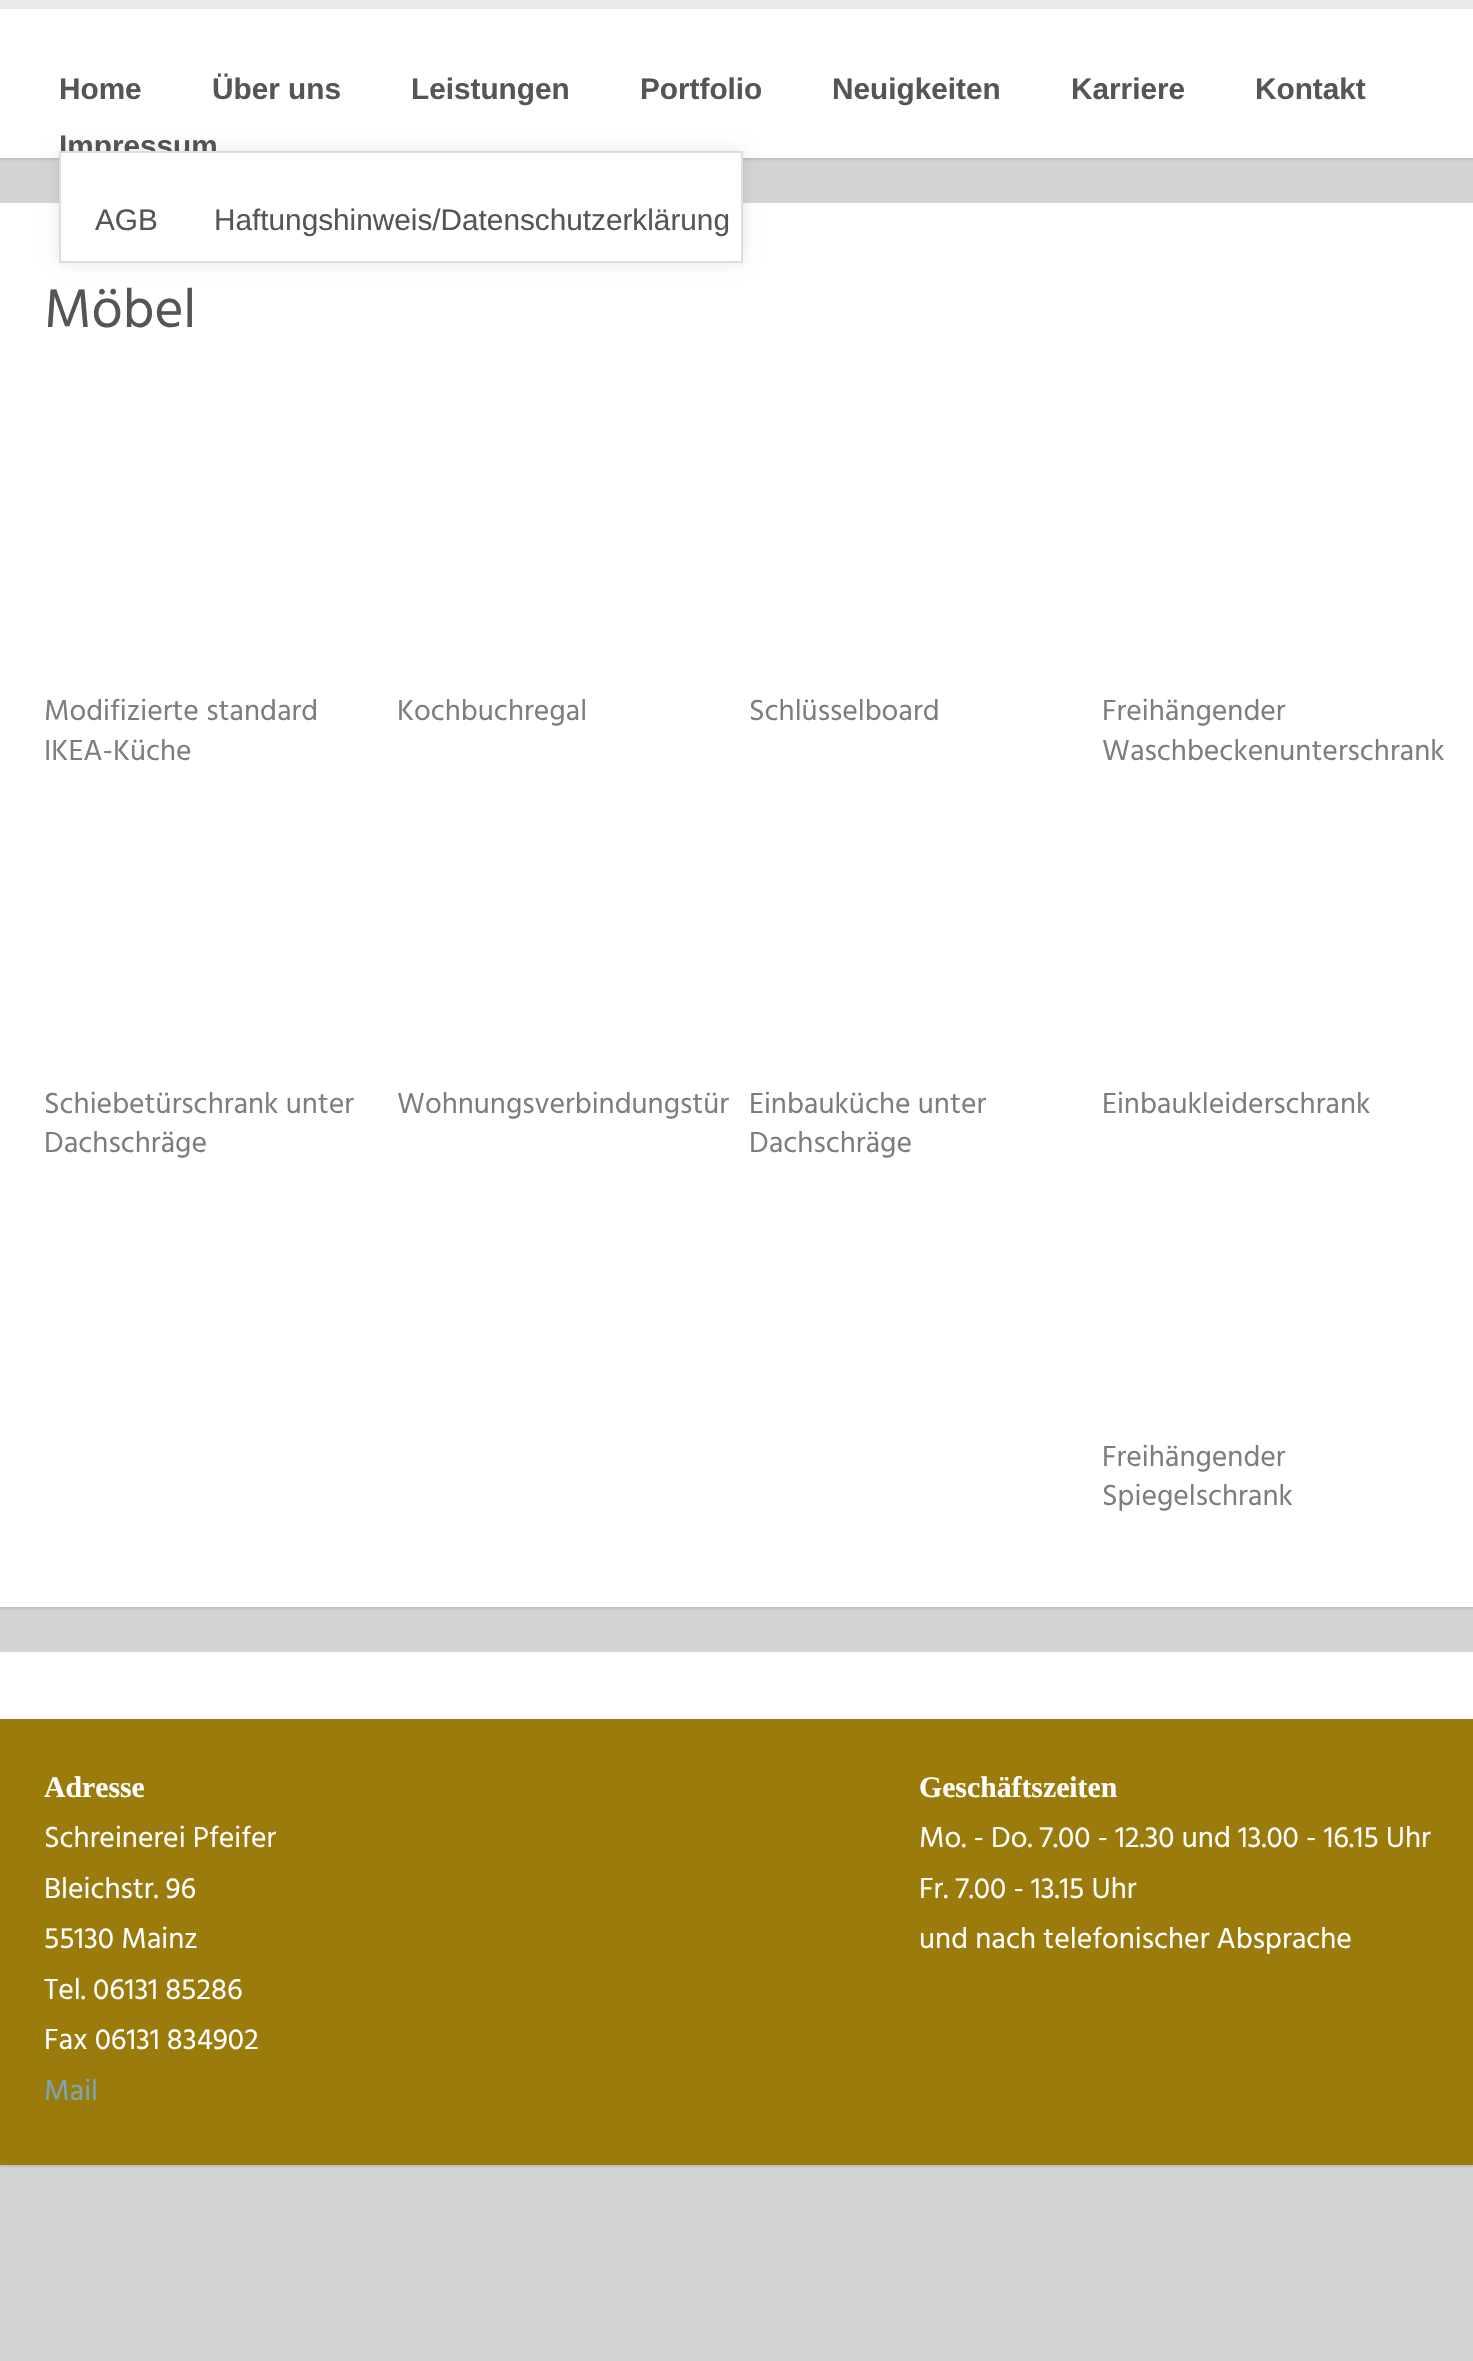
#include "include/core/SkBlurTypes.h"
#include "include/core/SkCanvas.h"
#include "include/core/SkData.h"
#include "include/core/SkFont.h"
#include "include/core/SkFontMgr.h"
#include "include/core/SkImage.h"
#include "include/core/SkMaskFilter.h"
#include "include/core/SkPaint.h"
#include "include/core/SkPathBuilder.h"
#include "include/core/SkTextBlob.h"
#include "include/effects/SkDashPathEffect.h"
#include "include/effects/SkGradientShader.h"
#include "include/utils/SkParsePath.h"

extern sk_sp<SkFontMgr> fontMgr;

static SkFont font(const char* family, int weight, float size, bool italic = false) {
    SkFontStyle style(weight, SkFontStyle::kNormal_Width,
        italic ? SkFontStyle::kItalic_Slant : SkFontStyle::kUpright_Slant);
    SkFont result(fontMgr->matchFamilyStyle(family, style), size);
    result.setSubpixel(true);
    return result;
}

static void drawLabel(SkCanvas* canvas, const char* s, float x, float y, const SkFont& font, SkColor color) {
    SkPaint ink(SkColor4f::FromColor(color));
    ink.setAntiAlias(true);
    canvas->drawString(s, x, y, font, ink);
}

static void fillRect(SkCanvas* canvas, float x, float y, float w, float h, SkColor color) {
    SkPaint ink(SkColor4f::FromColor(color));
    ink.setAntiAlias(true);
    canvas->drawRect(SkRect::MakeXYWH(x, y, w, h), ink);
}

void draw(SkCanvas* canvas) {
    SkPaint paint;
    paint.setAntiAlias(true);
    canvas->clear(0xFFD4D4D4);
    paint.setColor(0x1A000000);
    paint.setMaskFilter(SkMaskFilter::MakeBlur(kNormal_SkBlurStyle, 1));
    canvas->drawRect(SkRect::MakeXYWH(0, 2, 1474, 158), paint);
    paint.setMaskFilter(nullptr);
    fillRect(canvas, 0, 9, 1473, 149, 0xFFFFFFFF);
    fillRect(canvas, 0, 0, 1473, 9, 0xFFEAEAEA);
    SkFont font1 = font("Liberation Sans", 700, 29.75f);
    drawLabel(canvas, "Home", 59, 99, font1, 0xFF555555);
    drawLabel(canvas, "Über uns", 212, 99, font1, 0xFF555555);
    drawLabel(canvas, "Leistungen", 411, 99, font1, 0xFF555555);
    drawLabel(canvas, "Portfolio", 640, 99, font1, 0xFF555555);
    drawLabel(canvas, "Neuigkeiten", 832, 99, font1, 0xFF555555);
    drawLabel(canvas, "Karriere", 1071, 99, font1, 0xFF555555);
    drawLabel(canvas, "Kontakt", 1255, 99, font1, 0xFF555555);
    drawLabel(canvas, "Impressum", 59, 156, font1, 0xFF555555);
    paint.setMaskFilter(SkMaskFilter::MakeBlur(kNormal_SkBlurStyle, 1));
    canvas->drawRect(SkRect::MakeXYWH(0, 205, 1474, 1404), paint);
    paint.setMaskFilter(nullptr);
    fillRect(canvas, 0, 203, 1473, 1404, 0xFFFFFFFF);
    paint.setMaskFilter(SkMaskFilter::MakeBlur(kNormal_SkBlurStyle, 7));
    canvas->drawRect(SkRect::MakeXYWH(59, 151, 684, 112), paint);
    paint.setMaskFilter(nullptr);
    paint.setColor(0xFFFFFFFF);
    canvas->drawRect(SkRect::MakeXYWH(60, 152, 682, 110), paint);
    paint.setStroke(true);
    paint.setStrokeWidth(2);
    paint.setColor(0xFFDEDEDE);
    canvas->drawRect(SkRect::MakeXYWH(60, 152, 682, 110), paint);
    SkFont font2 = font("Liberation Sans", 400, 29.75f);
    drawLabel(canvas, "AGB", 95, 230, font2, 0xFF555555);
    drawLabel(canvas, "Haftungshinweis/Datenschutzerklärung", 214, 230, font2, 0xFF555555);
    SkFont font3 = font("Hind", 400, 55.5f);
    drawLabel(canvas, "Möbel", 44, 327, font3, 0xFF555555);
    SkFont font4 = font("Hind", 400, 29.75f);
    drawLabel(canvas, "Modifizierte standard", 44, 720, font4, 0xFF7D7D7B);
    drawLabel(canvas, "IKEA-Küche", 44, 760, font4, 0xFF7D7D7B);
    drawLabel(canvas, "Kochbuchregal", 397, 720, font4, 0xFF7D7D7B);
    drawLabel(canvas, "Schlüsselboard", 749, 720, font4, 0xFF7D7D7B);
    drawLabel(canvas, "Freihängender", 1102, 720, font4, 0xFF7D7D7B);
    drawLabel(canvas, "Waschbeckenunterschrank", 1102, 760, font4, 0xFF7D7D7B);
    drawLabel(canvas, "Schiebetürschrank unter", 44, 1113, font4, 0xFF7D7D7B);
    drawLabel(canvas, "Dachschräge", 44, 1152, font4, 0xFF7D7D7B);
    drawLabel(canvas, "Wohnungsverbindungstür", 397, 1113, font4, 0xFF7D7D7B);
    drawLabel(canvas, "Einbauküche unter", 749, 1113, font4, 0xFF7D7D7B);
    drawLabel(canvas, "Dachschräge", 749, 1152, font4, 0xFF7D7D7B);
    drawLabel(canvas, "Einbaukleiderschrank", 1102, 1113, font4, 0xFF7D7D7B);
    drawLabel(canvas, "Freihängender", 1102, 1466, font4, 0xFF7D7D7B);
    drawLabel(canvas, "Spiegelschrank", 1102, 1505, font4, 0xFF7D7D7B);
    paint.setStroke(false);
    paint.setColor(0x1A000000);
    paint.setMaskFilter(SkMaskFilter::MakeBlur(kNormal_SkBlurStyle, 1));
    canvas->drawRect(SkRect::MakeXYWH(0, 1654, 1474, 513), paint);
    paint.setMaskFilter(nullptr);
    fillRect(canvas, 0, 1652, 1473, 67, 0xFFFFFFFF);
    fillRect(canvas, 0, 1719, 1473, 446, 0xFF9C7B0D);
    SkFont font5 = font("Liberation Serif", 700, 29.75f);
    drawLabel(canvas, "Adresse", 44, 1797, font5, 0xFFFFFFFF);
    drawLabel(canvas, "Schreinerei Pfeifer", 44, 1847, font4, 0xFFFFFFFF);
    drawLabel(canvas, "Bleichstr. 96", 44, 1898, font4, 0xFFFFFFFF);
    drawLabel(canvas, "55130 Mainz", 44, 1948, font4, 0xFFFFFFFF);
    drawLabel(canvas, "Tel. 06131 85286", 44, 1999, font4, 0xFFFFFFFF);
    drawLabel(canvas, "Fax 06131 834902", 44, 2049, font4, 0xFFFFFFFF);
    drawLabel(canvas, "Mail", 44, 2100, font4, 0xFF77A7B9);
    drawLabel(canvas, "Geschäftszeiten", 919, 1797, font5, 0xFFFFFFFF);
    drawLabel(canvas, "Mo. - Do. 7.00 - 12.30 und 13.00 - 16.15 Uhr", 919, 1847, font4, 0xFFFFFFFF);
    drawLabel(canvas, "Fr. 7.00 - 13.15 Uhr", 919, 1898, font4, 0xFFFFFFFF);
    drawLabel(canvas, "und nach telefonischer Absprache", 919, 1948, font4, 0xFFFFFFFF);
}
